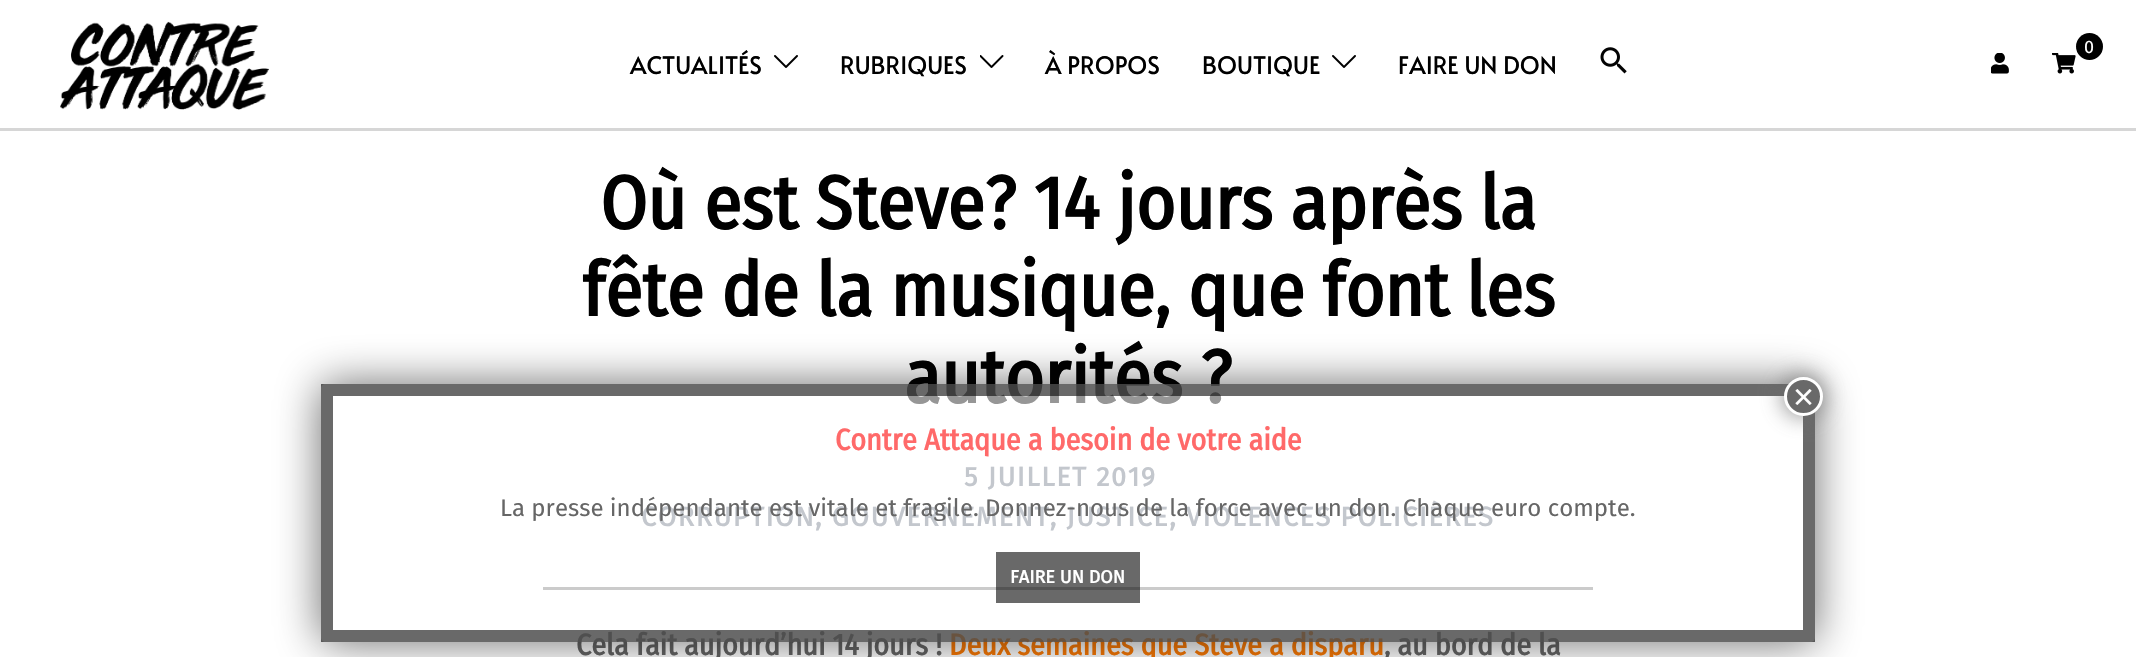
#include "include/core/SkBlurTypes.h"
#include "include/core/SkCanvas.h"
#include "include/core/SkData.h"
#include "include/core/SkFont.h"
#include "include/core/SkFontMgr.h"
#include "include/core/SkImage.h"
#include "include/core/SkMaskFilter.h"
#include "include/core/SkPaint.h"
#include "include/core/SkPathBuilder.h"
#include "include/core/SkTextBlob.h"
#include "include/effects/SkDashPathEffect.h"
#include "include/effects/SkGradientShader.h"
#include "include/utils/SkParsePath.h"

extern sk_sp<SkFontMgr> fontMgr;

static SkFont font(const char* family, int weight, float size, bool italic = false) {
    SkFontStyle style(weight, SkFontStyle::kNormal_Width,
        italic ? SkFontStyle::kItalic_Slant : SkFontStyle::kUpright_Slant);
    SkFont result(fontMgr->matchFamilyStyle(family, style), size);
    result.setSubpixel(true);
    return result;
}

static void drawLabel(SkCanvas* canvas, const char* s, float x, float y, const SkFont& font, SkColor color) {
    SkPaint ink(SkColor4f::FromColor(color));
    ink.setAntiAlias(true);
    canvas->drawString(s, x, y, font, ink);
}

static void drawTracked(SkCanvas* canvas, const char* s, float x, float y, const SkFont& font, const SkPaint& ink, float letter, float word) {
    std::vector<SkGlyphID> glyphs(font.countText(s, strlen(s), SkTextEncoding::kUTF8));
    std::vector<float> xs(glyphs.size());
    font.textToGlyphs(s, strlen(s), SkTextEncoding::kUTF8, glyphs);
    font.getXPos(glyphs, xs, x);
    float extra = 0;
    for (size_t i = 0; i < glyphs.size(); i++) {
        xs[i] += extra;
        extra += letter + word * (glyphs[i] == font.unicharToGlyph(' '));
    }
    canvas->drawTextBlob(SkTextBlob::MakeFromPosHGlyphs(glyphs, xs, y, font), 0, 0, ink);
}

static void fillRect(SkCanvas* canvas, float x, float y, float w, float h, SkColor color) {
    SkPaint ink(SkColor4f::FromColor(color));
    ink.setAntiAlias(true);
    canvas->drawRect(SkRect::MakeXYWH(x, y, w, h), ink);
}

static void fillRRect(SkCanvas* canvas, float x, float y, float w, float h, float radius, SkColor color) {
    SkPaint ink(SkColor4f::FromColor(color));
    ink.setAntiAlias(true);
    canvas->drawRoundRect(SkRect::MakeXYWH(x, y, w, h), radius, radius, ink);
}

static void drawPhoto(SkCanvas* canvas, const char* path, float x, float y, float w, float h) {
    auto image = SkImages::DeferredFromEncodedData(SkData::MakeFromFileName(path));
    canvas->drawImageRect(image, SkRect::MakeXYWH(x, y, w, h), SkSamplingOptions());
}

static SkPath parsePath(const char* data, bool evenOdd = false) {
    SkPath result = *SkParsePath::FromSVGString(data);
    if (evenOdd) result.setFillType(SkPathFillType::kEvenOdd);
    return result;
}

void draw(SkCanvas* canvas) {
    SkPaint paint;
    paint.setAntiAlias(true);
    canvas->clear(0xFFFFFFFF);
    fillRect(canvas, 0, 128, 2136, 3, 0xFFD6D6D6);
    drawPhoto(canvas, "assets/img1.png", 60, 21, 209, 89);
    paint.setColor(0xFF000000);
    canvas->drawCircle(2089.5f, 46.5f, 13.5f, paint);
    SkFont font1 = font("Fira Sans", 400, 18);
    drawLabel(canvas, "0", 2084, 53, font1, 0xFFFFFFFF);
    drawPhoto(canvas, "assets/img2.png", 2052, 53, 24, 21);
    drawPhoto(canvas, "assets/img3.png", 1991, 53, 18, 21);
    SkFont font2 = font("Alata", 400, 24);
    drawLabel(canvas, "ACTUALITÉS", 630, 74, font2, 0xFF000000);
    drawPhoto(canvas, "assets/img4.png", 774, 55, 24, 13);
    drawLabel(canvas, "RUBRIQUES", 840, 74, font2, 0xFF000000);
    drawPhoto(canvas, "assets/img5.png", 980, 55, 24, 13);
    drawLabel(canvas, "À PROPOS", 1045, 74, font2, 0xFF000000);
    drawLabel(canvas, "BOUTIQUE", 1202, 74, font2, 0xFF000000);
    drawPhoto(canvas, "assets/img4.png", 1332, 55, 24, 13);
    drawLabel(canvas, "FAIRE UN DON", 1398, 74, font2, 0xFF000000);
    drawPhoto(canvas, "assets/img6.png", 1600, 47, 27, 27);
    SkFont font3 = font("Fira Sans Condensed", 700, 75);
    drawLabel(canvas, "Où est Steve? 14 jours après la", 600, 229, font3, 0xFF000000);
    drawLabel(canvas, "fête de la musique, que font les", 582, 316, font3, 0xFF000000);
    drawLabel(canvas, "autorités ?", 904, 403, font3, 0xFF000000);
    SkFont font4 = font("Fira Sans", 700, 27);
    paint.setColor(0xFF6D7685);
    drawTracked(canvas, "5 JUILLET 2019", 964, 486, font4, paint, 1.5f, 0);
    drawTracked(canvas, "CORRUPTION, GOUVERNEMENT, JUSTICE, VIOLENCES POLICIÈRES", 641, 526, font4, paint, 1.5f, 0);
    fillRect(canvas, 543, 587, 1050, 3, 0xFF808080);
    SkFont font5 = font("Fira Sans Condensed", 700, 30);
    drawLabel(canvas, "Cela fait aujourd’hui 14 jours !", 576, 655, font5, 0xFF666666);
    drawLabel(canvas, "Deux semaines que Steve a disparu", 949, 655, font5, 0xFFFC7A04);
    drawLabel(canvas, ", au bord de la", 1384, 655, font5, 0xFF666666);
    canvas->save();
    canvas->clipPath(parsePath("M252 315H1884V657H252ZM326 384H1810C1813 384 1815 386 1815 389V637C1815 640 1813 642 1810 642H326C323 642 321 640 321 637V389C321 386 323 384 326 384Z", true), true);
    paint.setColor(0x96020202);
    paint.setMaskFilter(SkMaskFilter::MakeBlur(kNormal_SkBlurStyle, 22.5f));
    canvas->drawRoundRect(SkRect::MakeXYWH(321, 384, 1494, 258), 5, 5, paint);
    paint.setMaskFilter(nullptr);
    canvas->restore();
    fillRRect(canvas, 321, 384, 1494, 258, 5, 0x96FFFFFF);
    paint.setStroke(true);
    paint.setStrokeWidth(12);
    paint.setColor(0x96000000);
    canvas->drawPath(parsePath("M327 390H1809V636H327Z"), paint);
    paint.setStroke(false);
    paint.setColor(0xBF6A6A6A);
    paint.setMaskFilter(SkMaskFilter::MakeBlur(kNormal_SkBlurStyle, 11));
    canvas->drawRoundRect(SkRect::MakeXYWH(1782, 375, 42, 42), 21, 21, paint);
    paint.setMaskFilter(nullptr);
    paint.setColor(0xFF696969);
    canvas->drawCircle(1803.5f, 396.5f, 18, paint);
    paint.setStroke(true);
    paint.setStrokeWidth(3);
    paint.setColor(0xFFFFFFFF);
    canvas->drawCircle(1803.5f, 396.5f, 18, paint);
    SkFont font6 = font("Liberation Sans", 400, 36);
    drawLabel(canvas, "×", 1793, 409, font6, 0xFFFFFFFF);
    drawLabel(canvas, "Contre Attaque a besoin de votre aide", 835, 450, font5, 0xFFFF6969);
    SkFont font7 = font("Fira Sans", 400, 24);
    drawLabel(canvas, "La presse indépendante est vitale et fragile. Donnez-nous de la force avec un don. Chaque euro compte.", 500, 516, font7, 0xFF666666);
    fillRect(canvas, 996, 552, 144, 51, 0x96000000);
    SkFont font8 = font("Fira Sans", 700, 18);
    drawLabel(canvas, "FAIRE UN DON", 1010, 583, font8, 0xFFFFFFFF);
}
